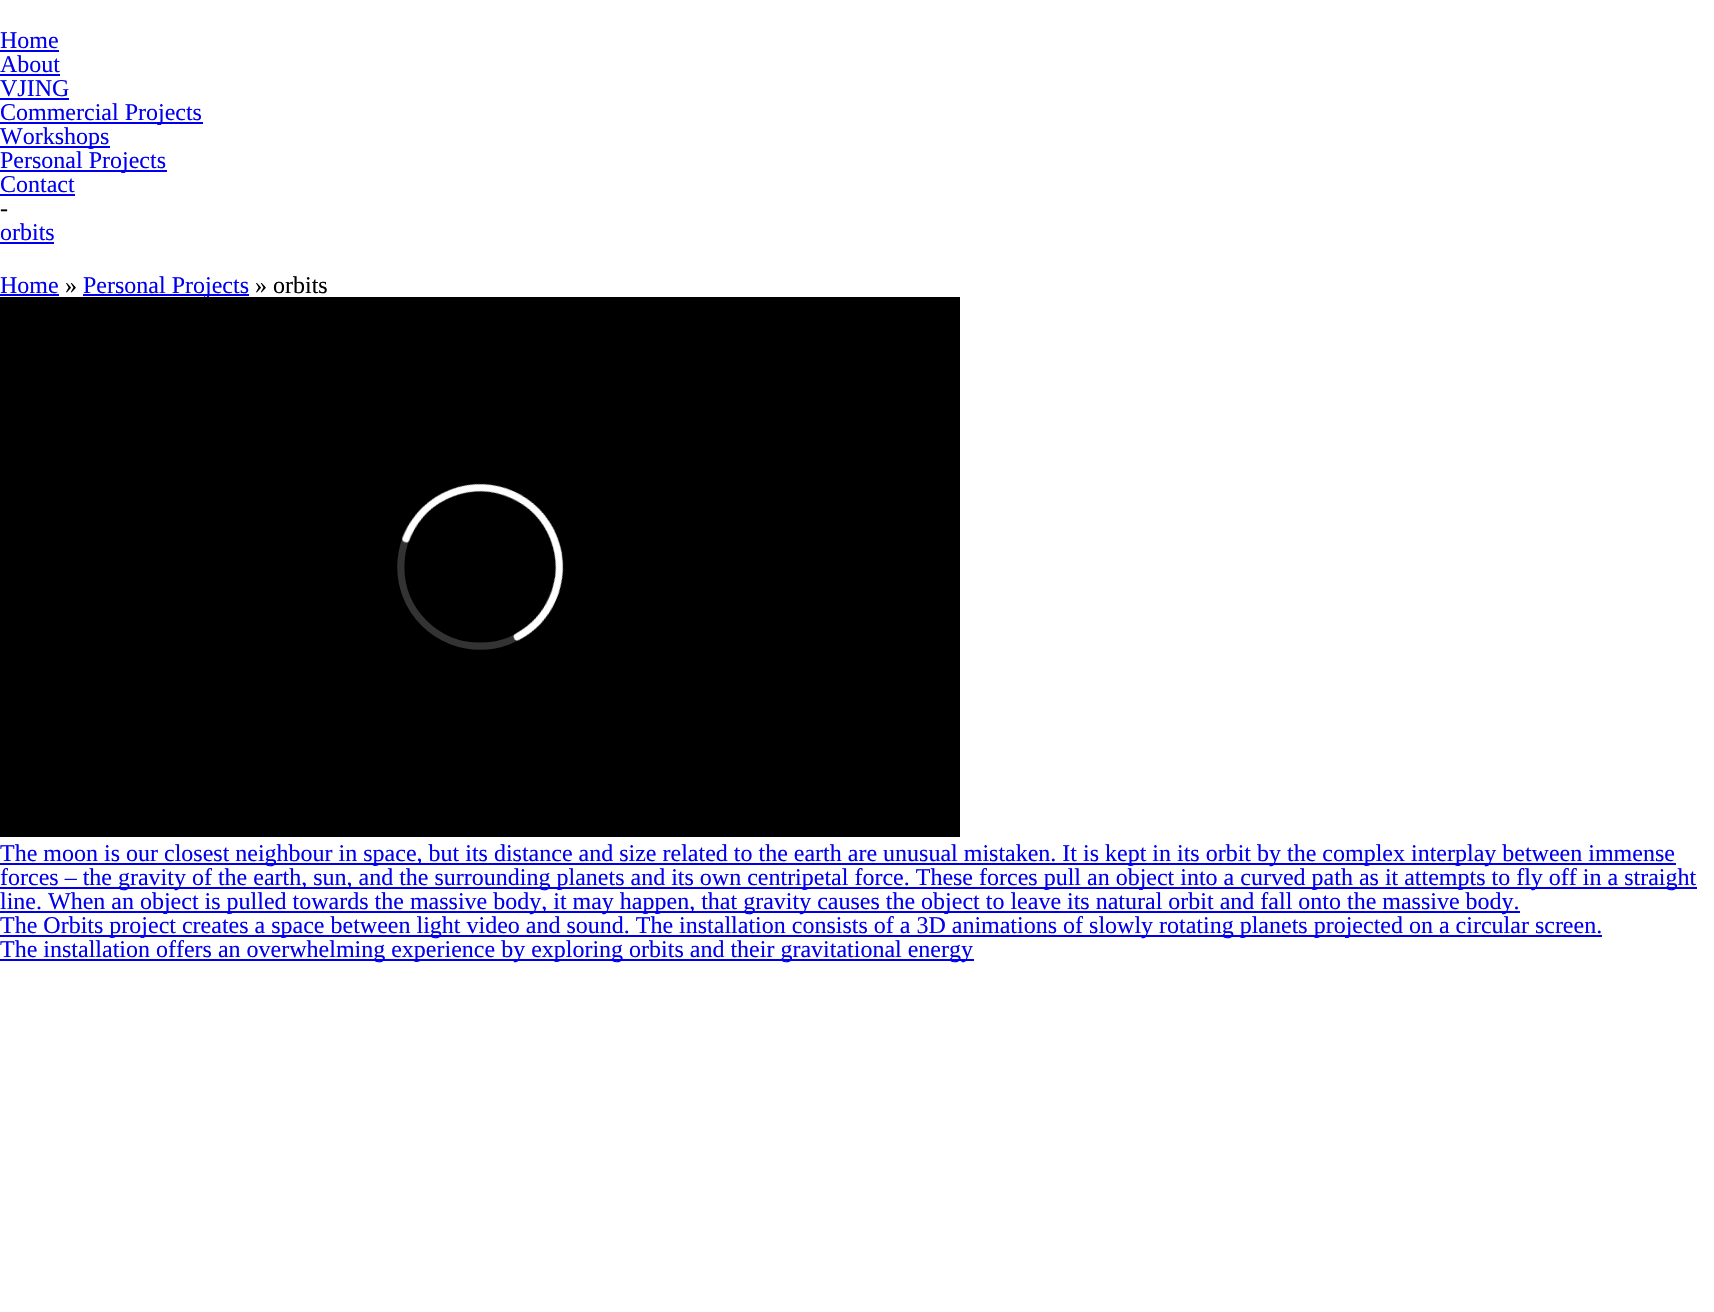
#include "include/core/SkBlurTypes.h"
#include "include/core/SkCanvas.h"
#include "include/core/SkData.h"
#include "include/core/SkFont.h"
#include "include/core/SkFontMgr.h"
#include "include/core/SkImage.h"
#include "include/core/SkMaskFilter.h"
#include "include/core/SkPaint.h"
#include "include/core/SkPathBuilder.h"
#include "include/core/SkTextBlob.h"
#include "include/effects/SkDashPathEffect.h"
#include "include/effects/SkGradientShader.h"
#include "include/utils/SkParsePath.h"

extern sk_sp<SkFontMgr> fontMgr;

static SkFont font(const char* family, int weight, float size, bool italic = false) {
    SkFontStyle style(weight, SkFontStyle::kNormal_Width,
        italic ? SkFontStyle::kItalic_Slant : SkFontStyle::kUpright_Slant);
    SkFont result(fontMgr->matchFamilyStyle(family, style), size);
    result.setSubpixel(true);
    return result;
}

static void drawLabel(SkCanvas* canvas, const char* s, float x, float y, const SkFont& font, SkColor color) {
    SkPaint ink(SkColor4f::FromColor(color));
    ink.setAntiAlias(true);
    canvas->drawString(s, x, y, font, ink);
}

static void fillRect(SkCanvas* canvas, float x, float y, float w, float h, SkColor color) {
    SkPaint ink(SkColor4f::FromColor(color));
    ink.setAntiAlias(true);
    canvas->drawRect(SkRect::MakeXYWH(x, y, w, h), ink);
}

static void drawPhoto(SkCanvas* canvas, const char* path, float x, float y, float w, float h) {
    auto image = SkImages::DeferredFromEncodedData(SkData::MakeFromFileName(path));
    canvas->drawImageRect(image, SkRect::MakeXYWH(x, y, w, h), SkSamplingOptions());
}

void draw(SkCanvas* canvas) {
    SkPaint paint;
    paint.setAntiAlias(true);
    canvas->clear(0xFFFFFFFF);
    SkFont font1 = font("Liberation Serif", 400, 24);
    drawLabel(canvas, "Home", 0, 48, font1, 0xFF0000EE);
    fillRect(canvas, 0, 50, 59, 2, 0xFF0000EE);
    drawLabel(canvas, "About", 0, 72, font1, 0xFF0000EE);
    fillRect(canvas, 0, 74, 60, 2, 0xFF0000EE);
    drawLabel(canvas, "VJING", 0, 96, font1, 0xFF0000EE);
    fillRect(canvas, 0, 98, 69, 2, 0xFF0000EE);
    fillRect(canvas, 0, 122, 203, 2, 0xFF0000EE);
    drawLabel(canvas, "Commercial Projects", 0, 120, font1, 0xFF0000EE);
    fillRect(canvas, 0, 146, 110, 2, 0xFF0000EE);
    drawLabel(canvas, "Workshops", 0, 144, font1, 0xFF0000EE);
    fillRect(canvas, 0, 170, 167, 2, 0xFF0000EE);
    drawLabel(canvas, "Personal Projects", 0, 168, font1, 0xFF0000EE);
    drawLabel(canvas, "Contact", 0, 192, font1, 0xFF0000EE);
    fillRect(canvas, 0, 194, 75, 2, 0xFF0000EE);
    drawLabel(canvas, "-", 0, 216, font1, 0xFF000000);
    drawLabel(canvas, "orbits", 0, 240, font1, 0xFF0000EE);
    fillRect(canvas, 0, 242, 54, 2, 0xFF0000EE);
    drawLabel(canvas, "Home", 0, 293, font1, 0xFF0000EE);
    fillRect(canvas, 0, 294, 59, 2, 0xFF0000EE);
    drawLabel(canvas, "»", 65, 293, font1, 0xFF000000);
    fillRect(canvas, 83, 294, 166, 2, 0xFF0000EE);
    drawLabel(canvas, "Personal Projects", 83, 293, font1, 0xFF0000EE);
    drawLabel(canvas, "» orbits", 255, 293, font1, 0xFF000000);
    drawPhoto(canvas, "assets/img1.png", 0, 297, 960, 540);
    fillRect(canvas, 0, 863, 1676, 2, 0xFF0000EE);
    drawLabel(canvas, "The moon is our closest neighbour in space, but its distance and size related to the earth are unusual mistaken. It is kept in its orbit by the complex interplay between immense", 0, 861, font1, 0xFF0000EE);
    fillRect(canvas, 0, 887, 1697, 2, 0xFF0000EE);
    drawLabel(canvas, "forces – the gravity of the earth, sun, and the surrounding planets and its own centripetal force. These forces pull an object into a curved path as it attempts to fly off in a straight", 0, 885, font1, 0xFF0000EE);
    fillRect(canvas, 0, 911, 1520, 2, 0xFF0000EE);
    drawLabel(canvas, "line. When an object is pulled towards the massive body, it may happen, that gravity causes the object to leave its natural orbit and fall onto the massive body.", 0, 909, font1, 0xFF0000EE);
    fillRect(canvas, 0, 935, 1602, 2, 0xFF0000EE);
    drawLabel(canvas, "The Orbits project creates a space between light video and sound. The installation consists of a 3D animations of slowly rotating planets projected on a circular screen.", 0, 933, font1, 0xFF0000EE);
    fillRect(canvas, 0, 959, 974, 2, 0xFF0000EE);
    drawLabel(canvas, "The installation offers an overwhelming experience by exploring orbits and their gravitational energy", 0, 957, font1, 0xFF0000EE);
}
